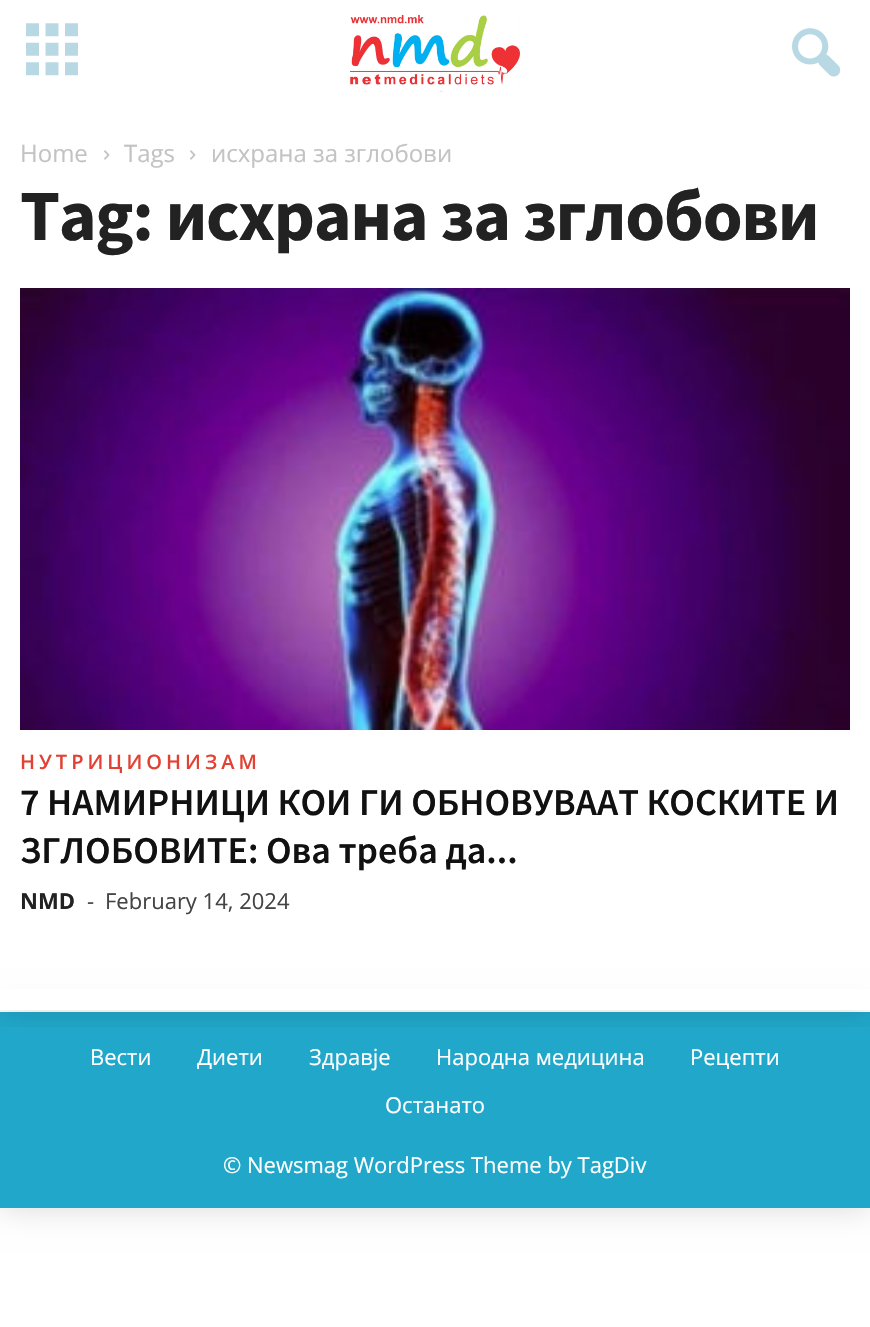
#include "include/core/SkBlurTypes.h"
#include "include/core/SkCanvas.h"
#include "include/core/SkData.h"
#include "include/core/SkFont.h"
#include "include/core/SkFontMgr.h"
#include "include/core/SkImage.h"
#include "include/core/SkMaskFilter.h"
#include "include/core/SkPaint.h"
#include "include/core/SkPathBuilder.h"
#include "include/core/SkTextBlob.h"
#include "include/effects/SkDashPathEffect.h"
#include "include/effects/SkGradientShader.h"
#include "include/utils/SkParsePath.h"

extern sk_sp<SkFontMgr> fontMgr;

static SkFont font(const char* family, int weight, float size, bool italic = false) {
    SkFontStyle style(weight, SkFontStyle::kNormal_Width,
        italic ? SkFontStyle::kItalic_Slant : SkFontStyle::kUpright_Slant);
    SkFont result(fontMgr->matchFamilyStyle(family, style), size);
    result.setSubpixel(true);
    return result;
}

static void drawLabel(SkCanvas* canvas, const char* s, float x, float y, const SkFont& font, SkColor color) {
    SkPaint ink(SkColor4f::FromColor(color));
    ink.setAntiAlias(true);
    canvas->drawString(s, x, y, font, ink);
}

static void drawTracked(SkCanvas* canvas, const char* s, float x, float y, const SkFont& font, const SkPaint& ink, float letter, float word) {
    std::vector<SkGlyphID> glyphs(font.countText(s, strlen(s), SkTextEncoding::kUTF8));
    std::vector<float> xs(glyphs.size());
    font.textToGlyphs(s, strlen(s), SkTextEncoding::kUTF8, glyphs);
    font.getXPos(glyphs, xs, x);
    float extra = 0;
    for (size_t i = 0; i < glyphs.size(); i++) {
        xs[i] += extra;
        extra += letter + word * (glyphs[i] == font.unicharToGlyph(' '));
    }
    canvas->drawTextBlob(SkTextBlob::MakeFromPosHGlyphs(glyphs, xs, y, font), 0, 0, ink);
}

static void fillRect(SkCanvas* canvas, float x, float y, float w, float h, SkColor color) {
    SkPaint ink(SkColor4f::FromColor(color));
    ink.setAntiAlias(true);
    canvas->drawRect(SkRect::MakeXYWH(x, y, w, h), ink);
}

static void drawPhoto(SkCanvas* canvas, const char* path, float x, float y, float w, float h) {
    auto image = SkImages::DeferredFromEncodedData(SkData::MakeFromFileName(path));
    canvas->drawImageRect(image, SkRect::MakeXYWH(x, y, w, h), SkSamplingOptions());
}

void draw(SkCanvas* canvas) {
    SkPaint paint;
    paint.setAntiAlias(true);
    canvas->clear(0xFFFFFFFF);
    paint.setColor(0x26000000);
    paint.setMaskFilter(SkMaskFilter::MakeBlur(kNormal_SkBlurStyle, 15));
    canvas->drawRect(SkRect::MakeXYWH(0, 1012, 870, 196), paint);
    paint.setMaskFilter(nullptr);
    fillRect(canvas, 0, 989, 870, 23, 0xFFFFFFFF);
    fillRect(canvas, 0, 1012, 870, 196, 0xFF20A7C9);
    canvas->save();
    canvas->clipRect(SkRect::MakeXYWH(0, 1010, 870, 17));
    paint.setMaskFilter(SkMaskFilter::MakeBlur(kNormal_SkBlurStyle, 15));
    canvas->drawRect(SkRect::MakeXYWH(0, 106, 870, 904), paint);
    paint.setMaskFilter(nullptr);
    canvas->restore();
    fillRect(canvas, 0, 83, 870, 23, 0xFFFFFFFF);
    drawPhoto(canvas, "assets/img1.png", 26, 23, 52, 53);
    drawPhoto(canvas, "assets/img2.png", 350, 14, 170, 78);
    drawPhoto(canvas, "assets/img3.png", 792, 28, 49, 49);
    SkFont font1 = font("Open Sans", 400, 24);
    drawLabel(canvas, "Home", 20, 162, font1, 0xFFC3C3C3);
    drawPhoto(canvas, "assets/img4.png", 104, 150, 6, 10);
    drawLabel(canvas, "Tags", 124, 162, font1, 0xFFC3C3C3);
    drawPhoto(canvas, "assets/img4.png", 190, 150, 6, 10);
    drawLabel(canvas, "исхрана за зглобови", 211, 162, font1, 0xFFC3C3C3);
    SkFont font2 = font("Source Sans Pro", 700, 72);
    paint.setColor(0xFF222222);
    drawTracked(canvas, "Tag: исхрана за зглобови", 20, 240, font2, paint, -1.4f, 0);
    drawPhoto(canvas, "assets/img5.png", 20, 288, 830, 442);
    SkFont font3 = font("Open Sans", 600, 20);
    paint.setColor(0xFFE24234);
    drawTracked(canvas, "НУТРИЦИОНИЗАМ", 20, 769, font3, paint, 4, 0);
    SkFont font4 = font("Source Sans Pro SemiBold", 600, 38);
    drawLabel(canvas, "7 НАМИРНИЦИ КОИ ГИ ОБНОВУВААТ КОСКИТЕ И", 20, 815, font4, 0xFF111111);
    drawLabel(canvas, "ЗГЛОБОВИТЕ: Ова треба да...", 20, 863, font4, 0xFF111111);
    SkFont font5 = font("Open Sans", 700, 22);
    drawLabel(canvas, "NMD", 20, 909, font5, 0xFF222222);
    SkFont font6 = font("Open Sans", 400, 22);
    drawLabel(canvas, "-", 87, 909, font6, 0xFF444444);
    drawLabel(canvas, "February 14, 2024", 105, 909, font6, 0xFF444444);
    drawLabel(canvas, "Вести", 90, 1065, font6, 0xFFFFFFFF);
    drawLabel(canvas, "Диети", 197, 1065, font6, 0xFFFFFFFF);
    drawLabel(canvas, "Здравје", 309, 1065, font6, 0xFFFFFFFF);
    drawLabel(canvas, "Народна медицина", 436, 1065, font6, 0xFFFFFFFF);
    drawLabel(canvas, "Рецепти", 690, 1065, font6, 0xFFFFFFFF);
    drawLabel(canvas, "Останато", 385, 1113, font6, 0xFFFFFFFF);
    drawLabel(canvas, "© Newsmag WordPress Theme by TagDiv", 223, 1173, font6, 0xFFFFFFFF);
}
